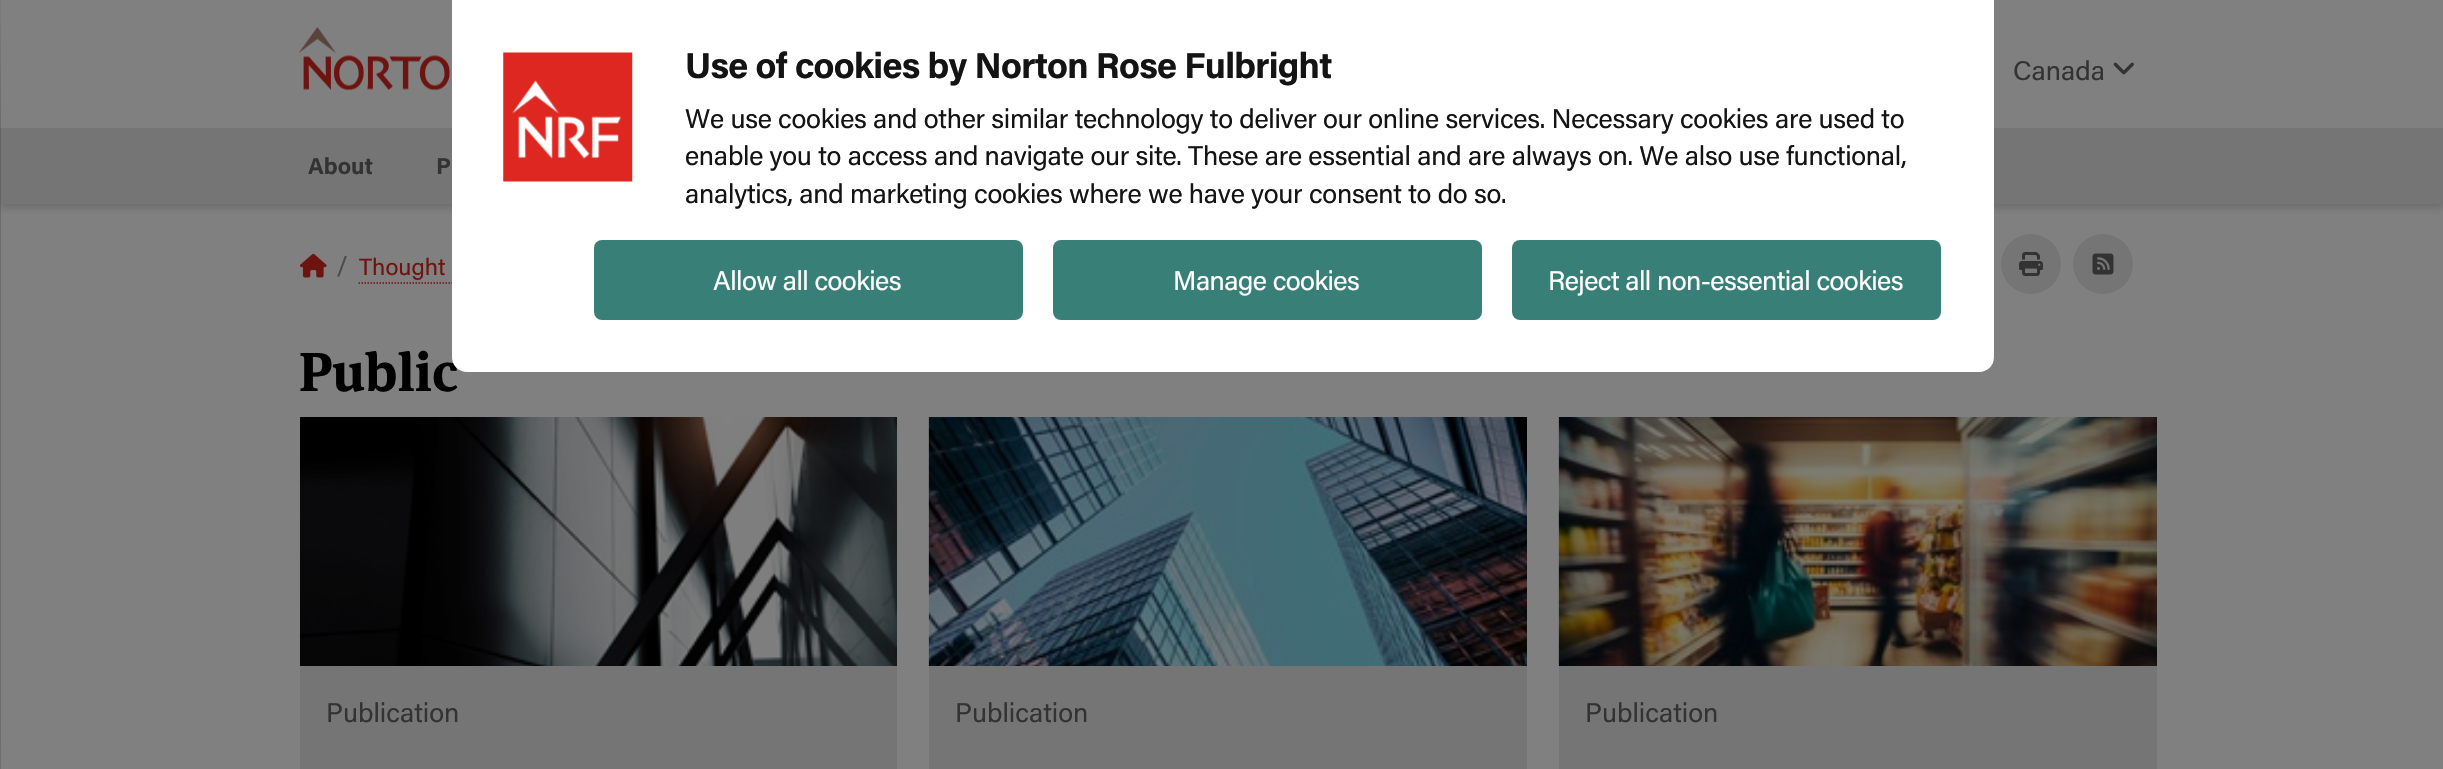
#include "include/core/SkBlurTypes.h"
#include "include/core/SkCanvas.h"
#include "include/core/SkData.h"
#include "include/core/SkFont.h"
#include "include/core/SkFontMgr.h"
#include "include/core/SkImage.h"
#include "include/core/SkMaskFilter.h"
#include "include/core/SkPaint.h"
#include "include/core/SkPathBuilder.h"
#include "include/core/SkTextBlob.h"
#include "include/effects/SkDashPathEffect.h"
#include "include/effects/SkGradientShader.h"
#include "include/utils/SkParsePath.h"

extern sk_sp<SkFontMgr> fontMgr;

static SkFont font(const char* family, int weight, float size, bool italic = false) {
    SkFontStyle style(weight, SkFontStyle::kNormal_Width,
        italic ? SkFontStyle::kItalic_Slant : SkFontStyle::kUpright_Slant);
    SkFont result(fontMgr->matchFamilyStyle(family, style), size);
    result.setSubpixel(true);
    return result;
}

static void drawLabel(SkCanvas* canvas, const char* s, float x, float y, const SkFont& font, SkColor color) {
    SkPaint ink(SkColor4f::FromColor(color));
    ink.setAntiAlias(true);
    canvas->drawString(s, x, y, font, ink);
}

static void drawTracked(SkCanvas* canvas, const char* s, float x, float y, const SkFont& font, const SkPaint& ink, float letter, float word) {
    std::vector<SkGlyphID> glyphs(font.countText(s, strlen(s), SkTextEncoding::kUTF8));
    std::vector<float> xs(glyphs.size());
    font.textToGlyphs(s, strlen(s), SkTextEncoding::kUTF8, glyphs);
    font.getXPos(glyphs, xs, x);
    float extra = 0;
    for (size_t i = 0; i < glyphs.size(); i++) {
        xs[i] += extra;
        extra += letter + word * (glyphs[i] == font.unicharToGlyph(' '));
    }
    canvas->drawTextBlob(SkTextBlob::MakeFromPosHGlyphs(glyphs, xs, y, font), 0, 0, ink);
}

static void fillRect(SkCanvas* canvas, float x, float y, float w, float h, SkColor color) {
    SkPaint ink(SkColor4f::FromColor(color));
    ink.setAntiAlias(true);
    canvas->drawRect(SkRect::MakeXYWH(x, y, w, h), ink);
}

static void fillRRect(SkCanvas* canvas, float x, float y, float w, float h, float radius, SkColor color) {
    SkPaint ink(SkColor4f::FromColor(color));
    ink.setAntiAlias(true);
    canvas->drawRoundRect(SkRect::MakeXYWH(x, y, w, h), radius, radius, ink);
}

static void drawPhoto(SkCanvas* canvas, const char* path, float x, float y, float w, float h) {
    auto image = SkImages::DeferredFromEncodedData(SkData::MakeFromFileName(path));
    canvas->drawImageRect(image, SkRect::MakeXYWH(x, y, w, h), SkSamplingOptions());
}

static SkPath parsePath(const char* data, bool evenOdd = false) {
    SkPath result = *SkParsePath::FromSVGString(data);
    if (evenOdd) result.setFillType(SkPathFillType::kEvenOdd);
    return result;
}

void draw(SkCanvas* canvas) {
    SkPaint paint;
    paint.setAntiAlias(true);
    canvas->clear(0xFF808080);
    canvas->save();
    canvas->clipRect(SkRect::MakeXYWH(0, 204, 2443, 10));
    paint.setColor(0x4D333333);
    paint.setMaskFilter(SkMaskFilter::MakeBlur(kNormal_SkBlurStyle, 4.5f));
    canvas->drawRect(SkRect::MakeXYWH(0, 3, 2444, 204), paint);
    paint.setMaskFilter(nullptr);
    canvas->restore();
    drawPhoto(canvas, "assets/img2.png", 299, 27, 151, 64);
    drawPhoto(canvas, "assets/img3.png", 2113, 62, 21, 13);
    fillRect(canvas, 0, 128, 2443, 76, 0xFF757575);
    drawPhoto(canvas, "assets/img4.png", 300, 253, 27, 25);
    paint.setStroke(true);
    paint.setStrokeWidth(1.5f);
    paint.setColor(0xFF6F1410);
    paint.setPathEffect(SkDashPathEffect::Make({{1.5f, 1.5f}}, 0));
    canvas->drawPath(parsePath("M358.5 283H559.5"), paint);
    paint.setPathEffect(nullptr);
    paint.setStroke(false);
    paint.setColor(0xFF757575);
    canvas->drawCircle(2031, 264, 30, paint);
    drawPhoto(canvas, "assets/img5.png", 2019, 252, 24, 24);
    canvas->drawCircle(2103, 264, 30, paint);
    drawPhoto(canvas, "assets/img6.png", 2092, 253, 22, 22);
    fillRect(canvas, 300, 666, 597, 103, 0xFF757575);
    drawPhoto(canvas, "assets/img7.png", 300, 417, 597, 249);
    fillRect(canvas, 929, 666, 598, 103, 0xFF757575);
    drawPhoto(canvas, "assets/img8.png", 928, 417, 599, 249);
    fillRect(canvas, 1559, 666, 598, 103, 0xFF757575);
    drawPhoto(canvas, "assets/img9.png", 1558, 417, 599, 249);
    canvas->save();
    canvas->clipRect(SkRect::MakeXYWH(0, 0, 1, 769));
    paint.setColor(0x4D000000);
    paint.setMaskFilter(SkMaskFilter::MakeBlur(kNormal_SkBlurStyle, 52.5f));
    canvas->drawRect(SkRect::MakeXYWH(2, 45, 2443, 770), paint);
    paint.setMaskFilter(nullptr);
    canvas->restore();
    SkFont font1 = font("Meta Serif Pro", 700, 54.5f);
    drawLabel(canvas, "Public", 299, 391, font1, 0xFF000000);
    paint.setColor(0xFFFFFFFF);
    canvas->drawPath(parsePath("M452 0H1994V357C1994 365.5 1987.5 372 1979 372H467C458.5 372 452 365.5 452 357Z"), paint);
    drawPhoto(canvas, "assets/img1.png", 503, 52, 130, 130);
    SkFont font2 = font("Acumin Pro", 700, 36);
    paint.setColor(0xFF141414);
    drawTracked(canvas, "Use of cookies by Norton Rose Fulbright", 685, 78, font2, paint, -0.7f, 0);
    SkFont font3 = font("Acumin Pro", 400, 27);
    drawTracked(canvas, "We use cookies and other similar technology to deliver our online services. Necessary cookies are used to", 685, 128, font3, paint, -0.27f, 0);
    drawTracked(canvas, "enable you to access and navigate our site. These are essential and are always on. We also use functional,", 685, 165, font3, paint, -0.27f, 0);
    drawTracked(canvas, "analytics, and marketing cookies where we have your consent to do so.", 685, 203, font3, paint, -0.27f, 0);
    fillRRect(canvas, 594, 240, 429, 80, 8, 0xFF388077);
    paint.setColor(0xFFFFFFFF);
    drawTracked(canvas, "Allow all cookies", 713, 290, font3, paint, -0.55f, 0);
    fillRRect(canvas, 1053, 240, 429, 80, 8, 0xFF388077);
    drawTracked(canvas, "Manage cookies", 1173, 290, font3, paint, -0.55f, 0);
    fillRRect(canvas, 1512, 240, 429, 80, 8, 0xFF388077);
    drawTracked(canvas, "Reject all non-essential cookies", 1548, 290, font3, paint, -0.55f, 0);
    drawLabel(canvas, "Canada", 2013, 80, font3, 0xFF333333);
    SkFont font4 = font("Acumin Pro", 700, 23);
    drawLabel(canvas, "About", 308, 174, font4, 0xFF333333);
    drawLabel(canvas, "P", 436, 174, font4, 0xFF333333);
    drawLabel(canvas, "/", 336, 275, font3, 0xFF4D4D4D);
    SkFont font5 = font("Acumin Pro", 400, 23.5f);
    drawLabel(canvas, "Thought", 359, 275, font5, 0xFF6F1410);
    drawLabel(canvas, "Publication", 326, 722, font3, 0xFF333333);
    drawLabel(canvas, "Publication", 955, 722, font3, 0xFF333333);
    drawLabel(canvas, "Publication", 1585, 722, font3, 0xFF333333);
}
